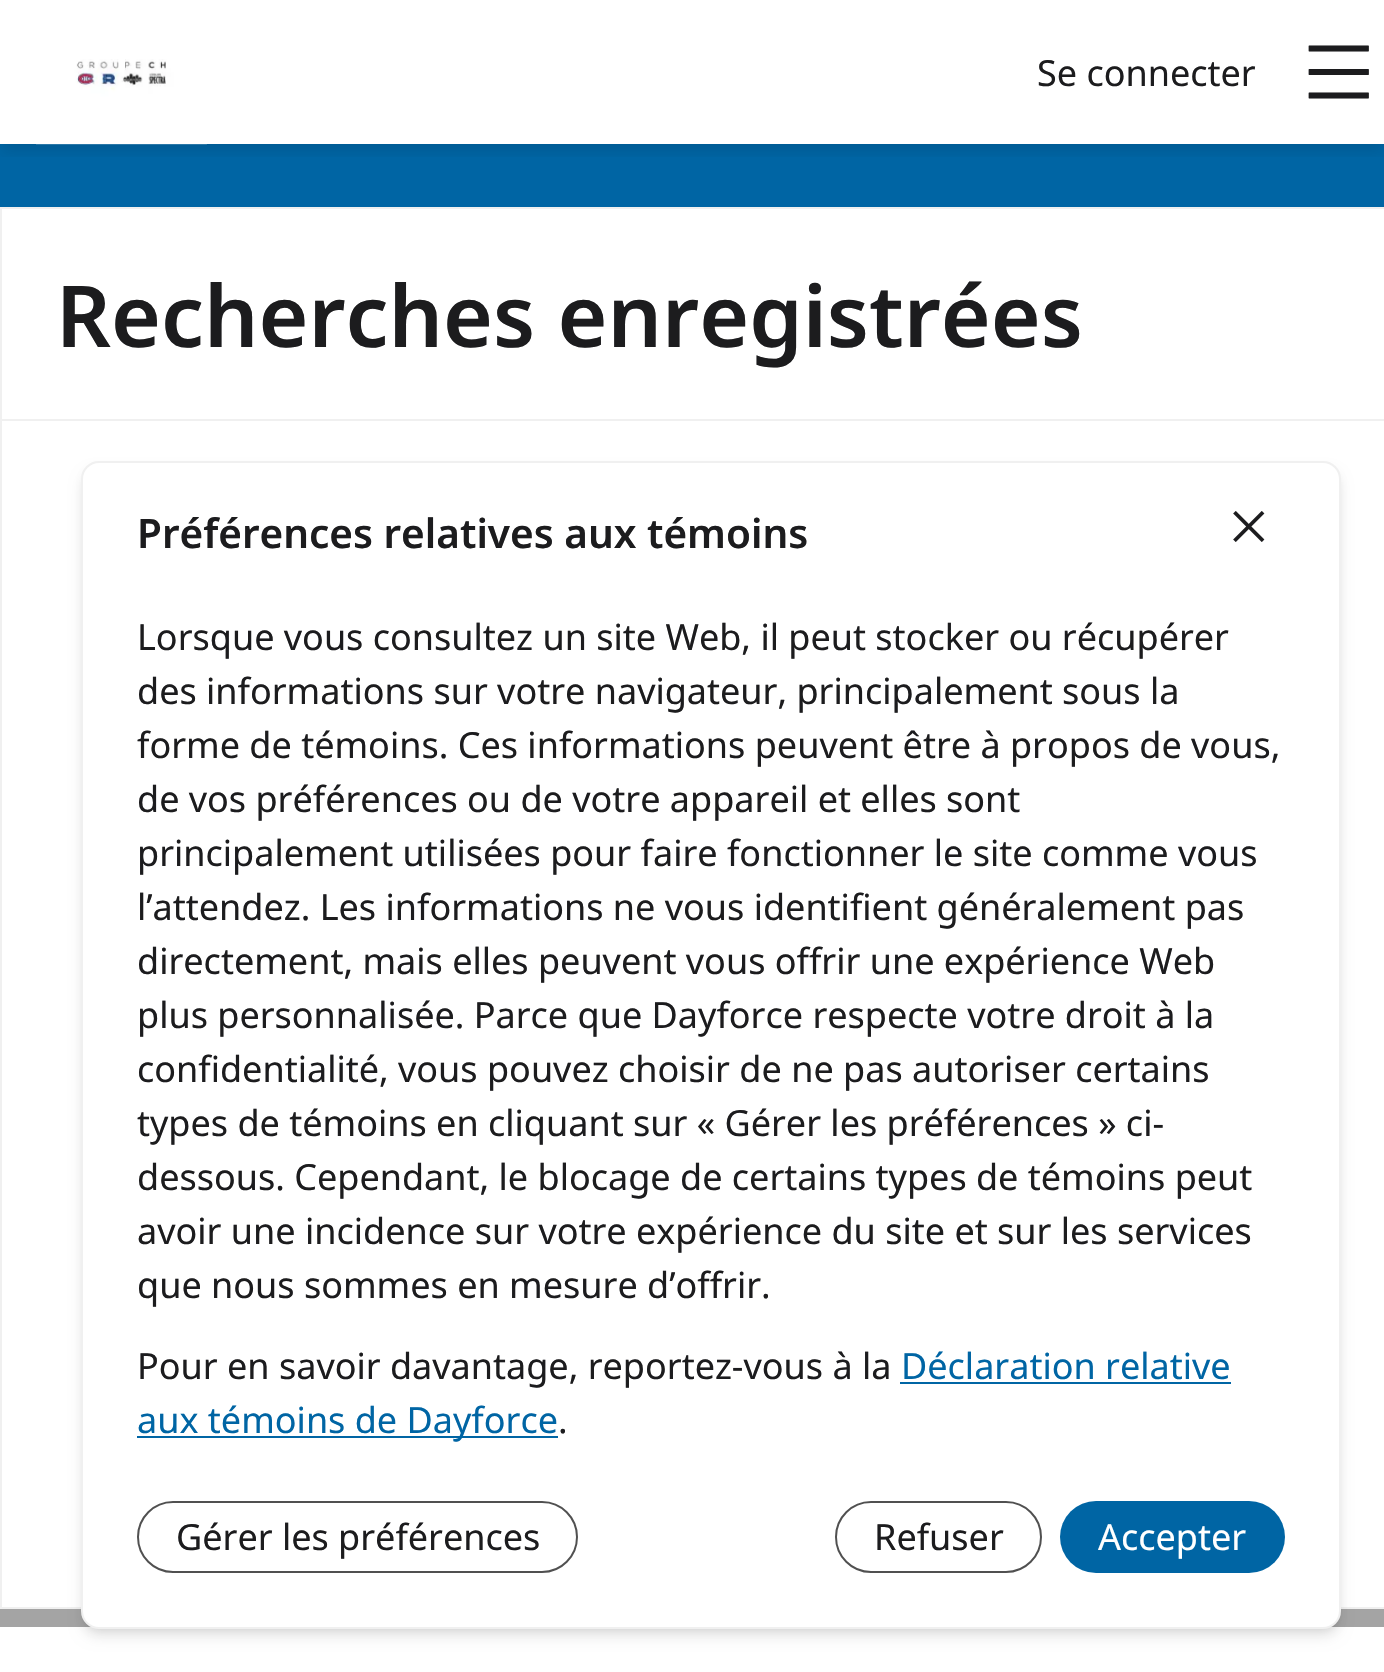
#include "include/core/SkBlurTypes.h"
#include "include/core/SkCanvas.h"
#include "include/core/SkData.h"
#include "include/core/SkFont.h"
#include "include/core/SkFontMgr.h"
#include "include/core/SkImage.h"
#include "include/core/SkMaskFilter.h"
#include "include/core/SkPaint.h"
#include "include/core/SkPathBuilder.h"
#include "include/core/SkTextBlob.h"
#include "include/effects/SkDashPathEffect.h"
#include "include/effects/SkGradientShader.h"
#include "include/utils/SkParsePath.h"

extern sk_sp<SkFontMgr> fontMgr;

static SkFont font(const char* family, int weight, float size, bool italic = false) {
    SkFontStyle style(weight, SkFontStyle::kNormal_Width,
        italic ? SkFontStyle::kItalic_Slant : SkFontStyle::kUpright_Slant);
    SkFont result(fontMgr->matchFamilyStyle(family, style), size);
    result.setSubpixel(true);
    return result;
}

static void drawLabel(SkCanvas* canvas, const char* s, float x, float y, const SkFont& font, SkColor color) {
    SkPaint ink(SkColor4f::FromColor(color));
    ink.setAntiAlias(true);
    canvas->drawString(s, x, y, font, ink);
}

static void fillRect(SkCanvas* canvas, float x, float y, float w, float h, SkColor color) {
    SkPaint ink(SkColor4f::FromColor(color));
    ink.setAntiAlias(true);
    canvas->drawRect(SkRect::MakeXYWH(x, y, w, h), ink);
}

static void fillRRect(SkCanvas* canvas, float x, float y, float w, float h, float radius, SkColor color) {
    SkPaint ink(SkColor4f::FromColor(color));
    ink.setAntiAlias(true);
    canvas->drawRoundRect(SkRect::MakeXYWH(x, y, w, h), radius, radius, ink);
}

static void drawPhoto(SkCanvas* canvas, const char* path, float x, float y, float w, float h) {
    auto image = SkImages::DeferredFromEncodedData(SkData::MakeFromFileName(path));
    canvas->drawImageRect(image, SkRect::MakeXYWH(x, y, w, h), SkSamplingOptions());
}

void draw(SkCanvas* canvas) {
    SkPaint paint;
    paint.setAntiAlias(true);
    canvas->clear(0xFFFFFFFF);
    fillRect(canvas, 0, 144, 1384, 63, 0xFF0065A4);
    canvas->save();
    canvas->clipRect(SkRect::MakeXYWH(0, 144, 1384, 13));
    paint.setColor(0x1A000000);
    paint.setMaskFilter(SkMaskFilter::MakeBlur(kNormal_SkBlurStyle, 7));
    canvas->drawRect(SkRect::MakeXYWH(2, 11, 1382, 140), paint);
    paint.setMaskFilter(nullptr);
    canvas->restore();
    drawPhoto(canvas, "assets/img1.png", 36, 59, 171, 86);
    SkFont font1 = font("Noto Sans", 400, 36);
    drawLabel(canvas, "Se connecter", 1037, 86, font1, 0xFF1C1C1E);
    drawPhoto(canvas, "assets/img2.png", 1308, 45, 61, 54);
    fillRect(canvas, 0, 1609, 1384, 18, 0xFFA4A4A4);
    paint.setStroke(true);
    paint.setStrokeWidth(2);
    paint.setColor(0xFFF0F0F0);
    canvas->drawRect(SkRect::MakeXYWH(1, 208, 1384, 1400), paint);
    fillRect(canvas, 2, 419, 1382, 2, 0xFFF0F0F0);
    SkFont font2 = font("Noto Sans", 600, 85.5f);
    drawLabel(canvas, "Recherches enregistrées", 56, 347, font2, 0xFF1C1C1E);
    paint.setStroke(false);
    paint.setColor(0x1A000000);
    paint.setMaskFilter(SkMaskFilter::MakeBlur(kNormal_SkBlurStyle, 4.5f));
    canvas->drawRoundRect(SkRect::MakeXYWH(86, 470, 1251, 1159), 14, 14, paint);
    paint.setMaskFilter(nullptr);
    paint.setMaskFilter(SkMaskFilter::MakeBlur(kNormal_SkBlurStyle, 7));
    canvas->drawRoundRect(SkRect::MakeXYWH(83, 473, 1256, 1163), 16, 16, paint);
    paint.setMaskFilter(nullptr);
    paint.setColor(0xFFFFFFFF);
    canvas->drawRoundRect(SkRect::MakeXYWH(82, 462, 1258, 1166), 17, 17, paint);
    paint.setStroke(true);
    paint.setColor(0xFFF0F0F0);
    canvas->drawRoundRect(SkRect::MakeXYWH(82, 462, 1258, 1166), 17, 17, paint);
    SkFont font3 = font("Noto Sans", 600, 40.5f);
    drawLabel(canvas, "Préférences relatives aux témoins", 137, 548, font3, 0xFF1C1C1E);
    drawPhoto(canvas, "assets/img3.png", 1233, 511, 32, 31);
    drawLabel(canvas, "Lorsque vous consultez un site Web, il peut stocker ou récupérer", 137, 650, font1, 0xFF1C1C1E);
    drawLabel(canvas, "des informations sur votre navigateur, principalement sous la", 137, 704, font1, 0xFF1C1C1E);
    drawLabel(canvas, "forme de témoins. Ces informations peuvent être à propos de vous,", 137, 758, font1, 0xFF1C1C1E);
    drawLabel(canvas, "de vos préférences ou de votre appareil et elles sont", 137, 812, font1, 0xFF1C1C1E);
    drawLabel(canvas, "principalement utilisées pour faire fonctionner le site comme vous", 137, 866, font1, 0xFF1C1C1E);
    drawLabel(canvas, "l’attendez. Les informations ne vous identifient généralement pas", 137, 920, font1, 0xFF1C1C1E);
    drawLabel(canvas, "directement, mais elles peuvent vous offrir une expérience Web", 137, 974, font1, 0xFF1C1C1E);
    drawLabel(canvas, "plus personnalisée. Parce que Dayforce respecte votre droit à la", 137, 1028, font1, 0xFF1C1C1E);
    drawLabel(canvas, "confidentialité, vous pouvez choisir de ne pas autoriser certains", 137, 1082, font1, 0xFF1C1C1E);
    drawLabel(canvas, "types de témoins en cliquant sur « Gérer les préférences » ci-", 137, 1136, font1, 0xFF1C1C1E);
    drawLabel(canvas, "dessous. Cependant, le blocage de certains types de témoins peut", 137, 1190, font1, 0xFF1C1C1E);
    drawLabel(canvas, "avoir une incidence sur votre expérience du site et sur les services", 137, 1244, font1, 0xFF1C1C1E);
    drawLabel(canvas, "que nous sommes en mesure d’offrir.", 137, 1298, font1, 0xFF1C1C1E);
    drawLabel(canvas, "Pour en savoir davantage, reportez-vous à la", 137, 1379, font1, 0xFF1C1C1E);
    drawLabel(canvas, "Déclaration relative", 901, 1379, font1, 0xFF0065A4);
    fillRect(canvas, 900, 1382, 331, 2, 0xFF0065A4);
    fillRect(canvas, 137, 1436, 421, 2, 0xFF0065A4);
    drawLabel(canvas, "aux témoins de Dayforce", 137, 1433, font1, 0xFF0065A4);
    drawLabel(canvas, ".", 558, 1433, font1, 0xFF1C1C1E);
    paint.setColor(0xFF505050);
    canvas->drawRoundRect(SkRect::MakeXYWH(138, 1502, 439, 70), 35, 35, paint);
    drawLabel(canvas, "Gérer les préférences", 176, 1550, font1, 0xFF1C1C1E);
    canvas->drawRoundRect(SkRect::MakeXYWH(836, 1502, 205, 70), 35, 35, paint);
    drawLabel(canvas, "Refuser", 874, 1550, font1, 0xFF1C1C1E);
    fillRRect(canvas, 1060, 1501, 225, 72, 36, 0xFF0065A4);
    drawLabel(canvas, "Accepter", 1098, 1550, font1, 0xFFFFFFFF);
}
